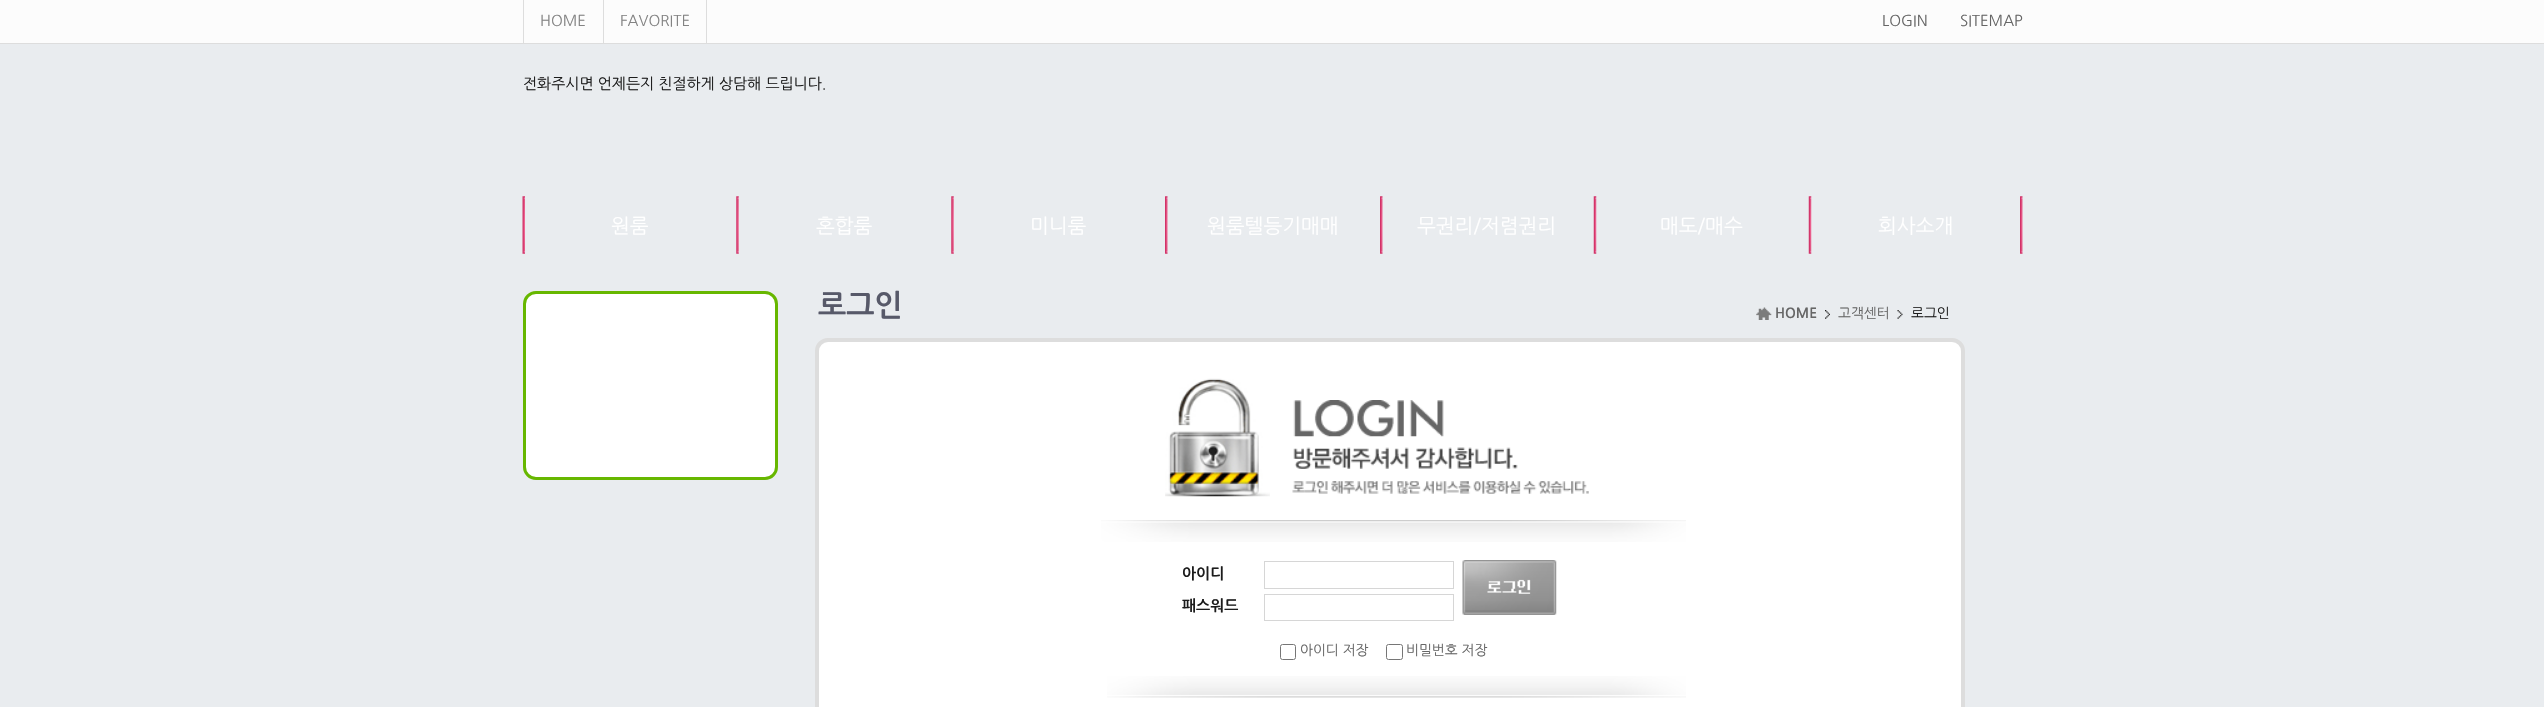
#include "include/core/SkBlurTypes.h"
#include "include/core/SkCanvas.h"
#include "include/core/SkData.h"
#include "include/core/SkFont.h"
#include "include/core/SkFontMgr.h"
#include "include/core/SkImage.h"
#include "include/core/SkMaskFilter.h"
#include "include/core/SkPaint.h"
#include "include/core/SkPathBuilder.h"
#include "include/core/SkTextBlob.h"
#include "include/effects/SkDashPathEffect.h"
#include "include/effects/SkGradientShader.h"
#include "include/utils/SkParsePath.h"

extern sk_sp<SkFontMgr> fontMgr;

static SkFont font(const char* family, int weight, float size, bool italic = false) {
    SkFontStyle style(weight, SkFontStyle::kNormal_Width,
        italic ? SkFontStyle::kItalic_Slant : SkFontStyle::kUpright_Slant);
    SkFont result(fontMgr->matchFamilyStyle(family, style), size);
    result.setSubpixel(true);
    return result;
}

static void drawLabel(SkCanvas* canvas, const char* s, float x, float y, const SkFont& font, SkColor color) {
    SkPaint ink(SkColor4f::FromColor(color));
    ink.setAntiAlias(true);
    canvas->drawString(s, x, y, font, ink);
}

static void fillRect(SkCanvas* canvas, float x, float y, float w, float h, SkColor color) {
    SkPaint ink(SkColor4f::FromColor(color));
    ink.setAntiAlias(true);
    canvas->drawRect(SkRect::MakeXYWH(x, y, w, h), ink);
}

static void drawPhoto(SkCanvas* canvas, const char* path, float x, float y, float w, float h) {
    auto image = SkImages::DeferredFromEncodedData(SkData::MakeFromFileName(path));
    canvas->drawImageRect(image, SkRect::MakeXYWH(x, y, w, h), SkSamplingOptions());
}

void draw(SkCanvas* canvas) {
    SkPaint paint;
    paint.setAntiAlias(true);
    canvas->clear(0xFFE9ECEF);
    fillRect(canvas, 0, 0, 2544, 43, 0xFFFCFCFC);
    fillRect(canvas, 0, 43, 2544, 1, 0xFFDDDDDD);
    fillRect(canvas, 603, 0, 1, 44, 0xFFDDDDDD);
    fillRect(canvas, 523, 0, 1, 44, 0xFFDDDDDD);
    SkFont font1 = font("NanumGothic", 400, 15);
    drawLabel(canvas, "HOME", 540, 26, font1, 0xFF838383);
    fillRect(canvas, 706, 0, 1, 44, 0xFFDDDDDD);
    drawLabel(canvas, "FAVORITE", 620, 26, font1, 0xFF838383);
    drawLabel(canvas, "LOGIN", 1882, 26, font1, 0xFF666666);
    drawLabel(canvas, "SITEMAP", 1960, 26, font1, 0xFF666666);
    drawLabel(canvas, "전화주시면 언제든지 친절하게 상담해 드립니다.", 523, 89, font1, 0xFF1C1C1C);
    drawPhoto(canvas, "assets/img1.png", 2020, 196, 3, 58);
    drawPhoto(canvas, "assets/img2.png", 522, 196, 3, 58);
    SkFont font2 = font("NanumGothic", 400, 20);
    drawLabel(canvas, "원룸", 611, 233, font2, 0xFFFFFFFF);
    drawPhoto(canvas, "assets/img3.png", 736, 196, 3, 58);
    drawLabel(canvas, "혼합룸", 816, 233, font2, 0xFFFFFFFF);
    drawPhoto(canvas, "assets/img3.png", 951, 196, 3, 58);
    drawLabel(canvas, "미니룸", 1030, 233, font2, 0xFFFFFFFF);
    drawPhoto(canvas, "assets/img1.png", 1165, 196, 3, 58);
    drawLabel(canvas, "원룸텔등기매매", 1207, 233, font2, 0xFFFFFFFF);
    drawPhoto(canvas, "assets/img1.png", 1380, 196, 3, 58);
    drawLabel(canvas, "무권리/저렴권리", 1417, 233, font2, 0xFFFFFFFF);
    drawPhoto(canvas, "assets/img4.png", 1593, 196, 4, 58);
    drawLabel(canvas, "매도/매수", 1660, 233, font2, 0xFFFFFFFF);
    drawPhoto(canvas, "assets/img4.png", 1808, 196, 4, 58);
    drawLabel(canvas, "회사소개", 1878, 233, font2, 0xFFFFFFFF);
    paint.setColor(0xFFFFFFFF);
    canvas->drawRoundRect(SkRect::MakeXYWH(524.5f, 292.5f, 252, 186), 11.5f, 11.5f, paint);
    paint.setStroke(true);
    paint.setStrokeWidth(3);
    paint.setColor(0xFF67B700);
    canvas->drawRoundRect(SkRect::MakeXYWH(524.5f, 292.5f, 252, 186), 11.5f, 11.5f, paint);
    SkFont font3 = font("NanumGothic", 700, 30);
    drawLabel(canvas, "로그인", 818, 316, font3, 0xFF575969);
    drawPhoto(canvas, "assets/img5.png", 1756, 307, 16, 13);
    SkFont font4 = font("NanumGothic", 700, 13.75f);
    drawLabel(canvas, "HOME", 1775, 318, font4, 0xFF666666);
    drawPhoto(canvas, "assets/img6.png", 1825, 310, 5, 9);
    SkFont font5 = font("NanumGothic", 400, 13.75f);
    drawLabel(canvas, "고객센터", 1838, 318, font5, 0xFF666666);
    drawPhoto(canvas, "assets/img7.png", 1897, 310, 6, 9);
    drawLabel(canvas, "로그인", 1911, 318, font5, 0xFF1C1C1C);
    paint.setStroke(false);
    paint.setColor(0xFFFFFFFF);
    canvas->drawRoundRect(SkRect::MakeXYWH(817, 340, 1146, 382), 11, 11, paint);
    paint.setStroke(true);
    paint.setStrokeWidth(4);
    paint.setColor(0xFFDDDDDD);
    canvas->drawRoundRect(SkRect::MakeXYWH(817, 340, 1146, 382), 11, 11, paint);
    drawPhoto(canvas, "assets/img8.png", 1165, 378, 105, 119);
    drawPhoto(canvas, "assets/img9.png", 1293, 400, 151, 37);
    drawPhoto(canvas, "assets/img10.png", 1293, 447, 225, 22);
    drawPhoto(canvas, "assets/img11.png", 1292, 481, 297, 13);
    drawPhoto(canvas, "assets/img12.png", 1107, 676, 579, 22);
    drawPhoto(canvas, "assets/img13.png", 1101, 520, 585, 22);
    SkFont font6 = font("NanumGothic", 700, 15);
    drawLabel(canvas, "아이디", 1182, 579, font6, 0xFF1C1C1C);
    paint.setStrokeWidth(1);
    paint.setColor(0xFFD6D6D6);
    canvas->drawRect(SkRect::MakeXYWH(1264.5f, 561.5f, 189, 27), paint);
    drawPhoto(canvas, "assets/img14.png", 1462, 560, 95, 55);
    drawLabel(canvas, "패스워드", 1182, 611, font6, 0xFF1C1C1C);
    canvas->drawRect(SkRect::MakeXYWH(1264.5f, 594.5f, 189, 26), paint);
    paint.setColor(0xFF767676);
    canvas->drawRoundRect(SkRect::MakeXYWH(1280.5f, 644.5f, 15, 15), 2, 2, paint);
    drawLabel(canvas, "아이디 저장", 1300, 655, font5, 0xFF666666);
    canvas->drawRoundRect(SkRect::MakeXYWH(1386.5f, 644.5f, 16, 15), 2, 2, paint);
    drawLabel(canvas, "비밀번호 저장", 1406, 655, font5, 0xFF666666);
}
